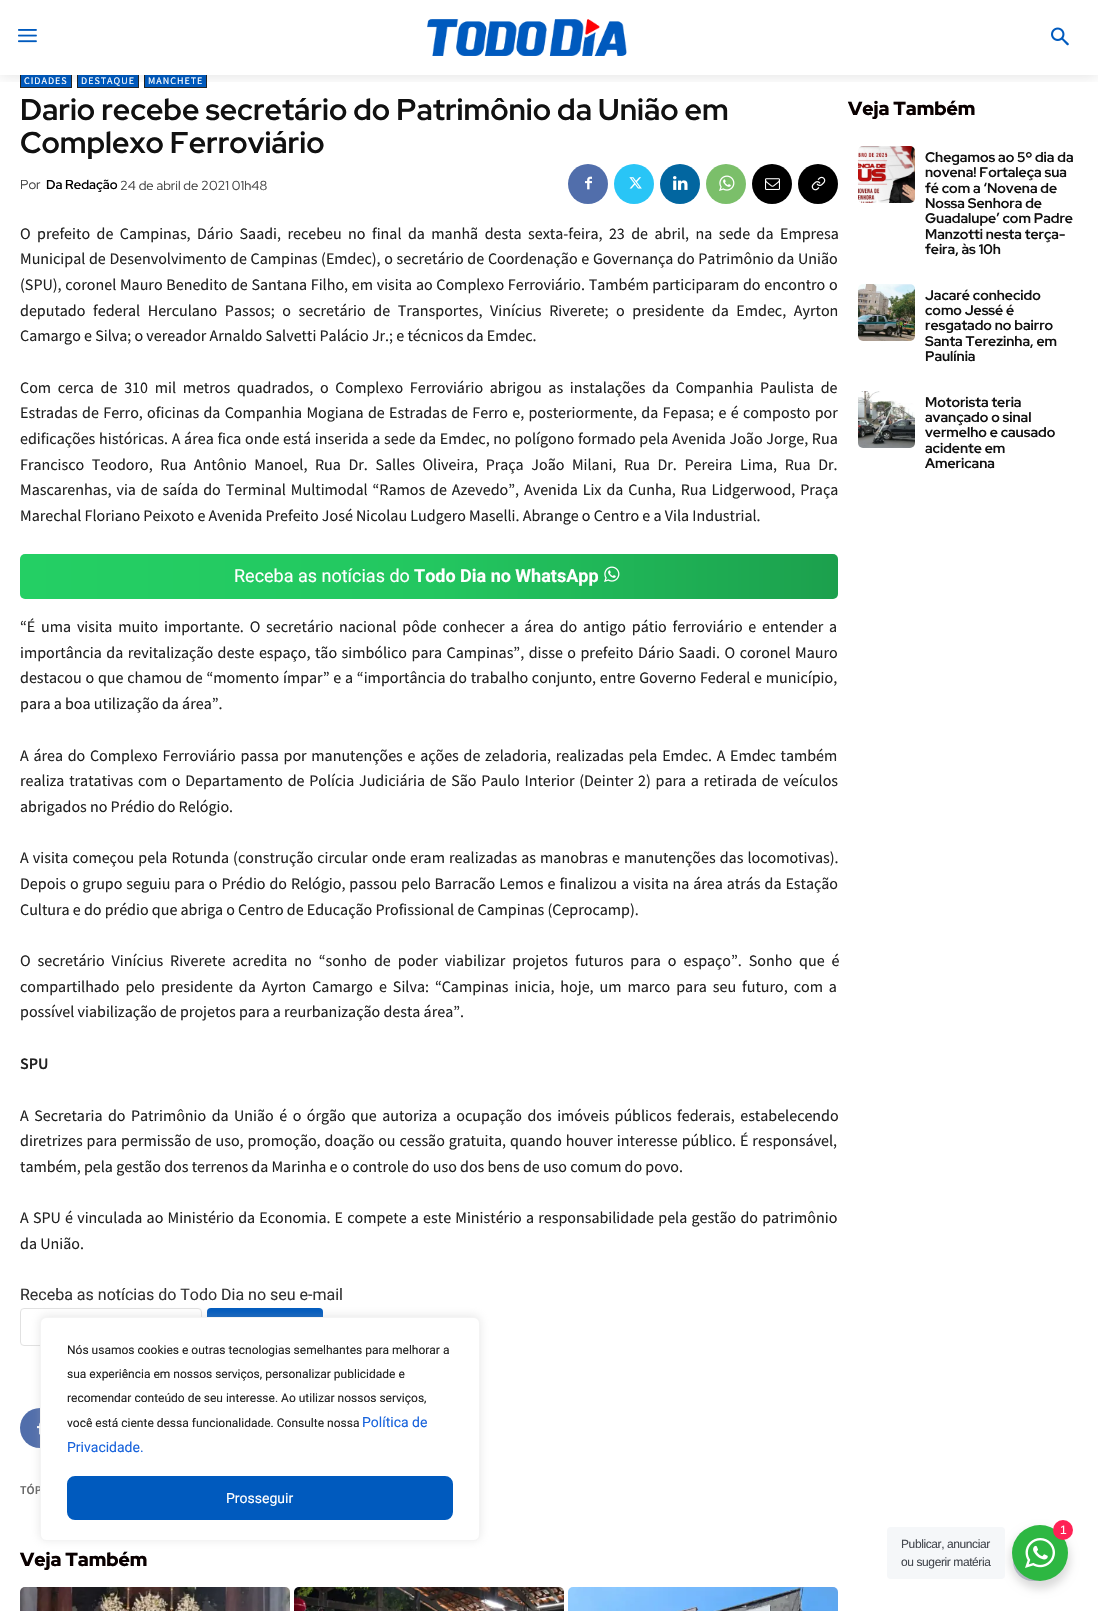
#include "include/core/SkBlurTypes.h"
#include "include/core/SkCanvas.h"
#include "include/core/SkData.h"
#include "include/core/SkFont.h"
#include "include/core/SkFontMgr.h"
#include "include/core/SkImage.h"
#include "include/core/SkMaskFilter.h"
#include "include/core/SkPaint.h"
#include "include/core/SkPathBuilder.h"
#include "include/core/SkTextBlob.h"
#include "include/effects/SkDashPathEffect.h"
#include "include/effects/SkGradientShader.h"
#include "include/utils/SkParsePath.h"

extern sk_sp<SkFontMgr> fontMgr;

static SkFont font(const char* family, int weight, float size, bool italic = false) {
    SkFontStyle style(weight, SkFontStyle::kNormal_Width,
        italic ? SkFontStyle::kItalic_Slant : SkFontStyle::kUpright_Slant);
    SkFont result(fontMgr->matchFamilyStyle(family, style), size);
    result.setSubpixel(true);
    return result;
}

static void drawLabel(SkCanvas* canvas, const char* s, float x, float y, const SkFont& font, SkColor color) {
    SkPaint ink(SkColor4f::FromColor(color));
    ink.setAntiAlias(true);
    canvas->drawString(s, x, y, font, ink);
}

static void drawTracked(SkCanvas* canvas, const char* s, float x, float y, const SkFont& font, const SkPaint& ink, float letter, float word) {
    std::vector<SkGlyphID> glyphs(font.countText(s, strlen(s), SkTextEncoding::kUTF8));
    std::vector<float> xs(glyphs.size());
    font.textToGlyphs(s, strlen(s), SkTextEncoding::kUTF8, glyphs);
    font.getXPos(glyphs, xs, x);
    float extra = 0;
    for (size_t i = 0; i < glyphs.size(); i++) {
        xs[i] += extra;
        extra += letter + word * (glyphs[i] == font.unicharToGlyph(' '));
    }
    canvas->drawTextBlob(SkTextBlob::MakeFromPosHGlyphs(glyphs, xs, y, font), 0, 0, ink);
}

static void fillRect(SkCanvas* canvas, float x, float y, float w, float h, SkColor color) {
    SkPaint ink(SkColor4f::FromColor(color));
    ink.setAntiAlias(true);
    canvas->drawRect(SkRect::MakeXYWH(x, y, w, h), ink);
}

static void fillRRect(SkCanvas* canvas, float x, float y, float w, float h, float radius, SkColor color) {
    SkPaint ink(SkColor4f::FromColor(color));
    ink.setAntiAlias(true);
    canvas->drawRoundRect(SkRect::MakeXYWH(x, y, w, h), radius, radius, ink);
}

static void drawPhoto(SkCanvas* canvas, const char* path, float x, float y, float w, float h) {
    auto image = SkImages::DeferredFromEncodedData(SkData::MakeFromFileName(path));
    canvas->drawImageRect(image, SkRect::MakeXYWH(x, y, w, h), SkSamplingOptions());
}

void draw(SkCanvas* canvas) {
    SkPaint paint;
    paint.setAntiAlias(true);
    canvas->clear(0xFFFFFFFF);
    drawPhoto(canvas, "assets/img1.png", 18, 29, 19, 14);
    drawPhoto(canvas, "assets/img2.png", 427, 19, 200, 37);
    fillRect(canvas, 21, 75, 50, 12, 0xFF005ABE);
    paint.setStroke(true);
    paint.setStrokeWidth(1);
    paint.setColor(0xFF222222);
    canvas->drawRect(SkRect::MakeXYWH(20.5f, 73.5f, 51, 14), paint);
    fillRect(canvas, 78, 75, 60, 12, 0xFF005ABE);
    canvas->drawRect(SkRect::MakeXYWH(77.5f, 73.5f, 61, 14), paint);
    fillRect(canvas, 145, 75, 61, 12, 0xFF005ABE);
    canvas->drawRect(SkRect::MakeXYWH(144.5f, 73.5f, 62, 14), paint);
    fillRect(canvas, 20, 73, 187, 2, 0xFFFFFFFF);
    canvas->save();
    canvas->clipRect(SkRect::MakeXYWH(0, 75, 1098, 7));
    paint.setStroke(false);
    paint.setColor(0x1F000000);
    paint.setMaskFilter(SkMaskFilter::MakeBlur(kNormal_SkBlurStyle, 7.5f));
    canvas->drawRect(SkRect::MakeXYWH(0, 0, 1098, 75), paint);
    paint.setMaskFilter(nullptr);
    canvas->restore();
    drawPhoto(canvas, "assets/img3.png", 1051, 27, 18, 19);
    SkFont font1 = font("Source Sans Pro", 400, 10);
    paint.setColor(0xFFFFFFFF);
    drawTracked(canvas, "CIDADES", 24, 84, font1, paint, 1, 0);
    drawTracked(canvas, "DESTAQUE", 81, 84, font1, paint, 1, 0);
    drawTracked(canvas, "MANCHETE", 148, 84, font1, paint, 1, 0);
    SkFont font2 = font("Red Hat Display", 700, 30);
    drawLabel(canvas, "Dario recebe secretário do Patrimônio da União em", 20, 120, font2, 0xFF111111);
    drawLabel(canvas, "Complexo Ferroviário", 20, 153, font2, 0xFF111111);
    SkFont font3 = font("Red Hat Display", 400, 13);
    drawLabel(canvas, "Por", 20, 189, font3, 0xFF444444);
    SkFont font4 = font("Red Hat Display", 600, 13);
    drawLabel(canvas, "Da Redação", 46, 189, font4, 0xFF000000);
    drawLabel(canvas, "24 de abril de 2021 01h48", 120, 190, font3, 0xFF444444);
    paint.setColor(0xFF516EAB);
    canvas->drawCircle(588, 184, 20, paint);
    drawPhoto(canvas, "assets/img4.png", 585, 176, 7, 14);
    paint.setColor(0xFF29C5F6);
    canvas->drawCircle(634, 184, 20, paint);
    drawPhoto(canvas, "assets/img5.png", 629, 177, 13, 12);
    paint.setColor(0xFF0266A0);
    canvas->drawCircle(680, 184, 20, paint);
    drawPhoto(canvas, "assets/img6.png", 673, 176, 15, 14);
    paint.setColor(0xFF7BBF6A);
    canvas->drawCircle(726, 184, 20, paint);
    drawPhoto(canvas, "assets/img7.png", 719, 175, 16, 16);
    paint.setColor(0xFF000000);
    canvas->drawCircle(772, 184, 20, paint);
    drawPhoto(canvas, "assets/img8.png", 765, 178, 15, 12);
    canvas->drawCircle(818, 184, 20, paint);
    drawPhoto(canvas, "assets/img9.png", 811, 176, 15, 15);
    SkFont font5 = font("Source Sans Pro", 400, 16);
    paint.setColor(0xFF222222);
    drawTracked(canvas, "O prefeito de Campinas, Dário Saadi, recebeu no final da manhã desta sexta-feira, 23 de abril, na sede da Empresa", 20, 239, font5, paint, 0, 3.25f);
    drawTracked(canvas, "Municipal de Desenvolvimento de Campinas (Emdec), o secretário de Coordenação e Governança do Patrimônio da União", 20, 264, font5, paint, 0, 0.5f);
    drawTracked(canvas, "(SPU), coronel Mauro Benedito de Santana Filho, em visita ao Complexo Ferroviário. Também participaram do encontro o", 20, 290, font5, paint, 0, 0.5f);
    drawTracked(canvas, "deputado federal Herculano Passos; o secretário de Transportes, Vinícius Riverete; o presidente da Emdec, Ayrton", 20, 316, font5, paint, 0, 4.4f);
    drawLabel(canvas, "Camargo e Silva; o vereador Arnaldo Salvetti Palácio Jr.; e técnicos da Emdec.", 20, 341, font5, 0xFF222222);
    drawTracked(canvas, "Com cerca de 310 mil metros quadrados, o Complexo Ferroviário abrigou as instalações da Companhia Paulista de", 20, 393, font5, paint, 0, 3.5f);
    drawTracked(canvas, "Estradas de Ferro, oficinas da Companhia Mogiana de Estradas de Ferro e, posteriormente, da Fepasa; e é composto por", 20, 418, font5, paint, 0, 1.1f);
    drawTracked(canvas, "edificações históricas. A área fica onde está inserida a sede da Emdec, no polígono formado pela Avenida João Jorge, Rua", 20, 444, font5, paint, 0, 0.5f);
    drawTracked(canvas, "Francisco Teodoro, Rua Antônio Manoel, Rua Dr. Salles Oliveira, Praça João Milani, Rua Dr. Pereira Lima, Rua Dr.", 20, 470, font5, paint, 0, 4.4f);
    drawTracked(canvas, "Mascarenhas, via de saída do Terminal Multimodal “Ramos de Azevedo”, Avenida Lix da Cunha, Rua Lidgerwood, Praça", 20, 495, font5, paint, 0, 1.75f);
    drawLabel(canvas, "Marechal Floriano Peixoto e Avenida Prefeito José Nicolau Ludgero Maselli. Abrange o Centro e a Vila Industrial.", 20, 521, font5, 0xFF222222);
    {
        const SkColor colors[] = {0xFF24CF64, 0xFF23C760, 0xFF1CA04D};
        const float stops[] = {0, 0.5f, 1};
        const SkPoint ends[] = {{20, 577}, {838, 577}};
        paint.setShader(SkGradientShader::MakeLinear(ends, colors, stops, 3, SkTileMode::kClamp));
        paint.setAlpha(255);
    }
    canvas->drawRoundRect(SkRect::MakeXYWH(20, 554, 818, 45), 5, 5, paint);
    SkFont font6 = font("Roboto", 400, 18);
    drawLabel(canvas, "Receba as notícias do", 234, 582, font6, 0xFFFFFFFF);
    SkFont font7 = font("Roboto", 700, 18);
    drawLabel(canvas, "Todo Dia no WhatsApp", 414, 582, font7, 0xFFFFFFFF);
    drawPhoto(canvas, "assets/img10.png", 604, 566, 16, 16);
    paint.setShader(nullptr);
    paint.setColor(0xFF222222);
    drawTracked(canvas, "“É uma visita muito importante. O secretário nacional pôde conhecer a área do antigo pátio ferroviário e entender a", 20, 632, font5, paint, 0, 2.6f);
    drawTracked(canvas, "importância da revitalização deste espaço, tão simbólico para Campinas”, disse o prefeito Dário Saadi. O coronel Mauro", 20, 658, font5, paint, 0, 1.3f);
    drawTracked(canvas, "destacou o que chamou de “momento ímpar” e a “importância do trabalho conjunto, entre Governo Federal e município,", 20, 683, font5, paint, 0, 0.6f);
    drawLabel(canvas, "para a boa utilização da área”.", 20, 709, font5, 0xFF222222);
    drawTracked(canvas, "A área do Complexo Ferroviário passa por manutenções e ações de zeladoria, realizadas pela Emdec. A Emdec também", 20, 761, font5, paint, 0, 1.5f);
    drawTracked(canvas, "realiza tratativas com o Departamento de Polícia Judiciária de São Paulo Interior (Deinter 2) para a retirada de veículos", 20, 786, font5, paint, 0, 1.5f);
    drawLabel(canvas, "abrigados no Prédio do Relógio.", 20, 812, font5, 0xFF222222);
    drawTracked(canvas, "A visita começou pela Rotunda (construção circular onde eram realizadas as manobras e manutenções das locomotivas).", 20, 863, font5, paint, 0, 0.9f);
    drawTracked(canvas, "Depois o grupo seguiu para o Prédio do Relógio, passou pelo Barracão Lemos e finalizou a visita na área atrás da Estação", 20, 889, font5, paint, 0, 0.75f);
    drawLabel(canvas, "Cultura e do prédio que abriga o Centro de Educação Profissional de Campinas (Ceprocamp).", 20, 915, font5, 0xFF222222);
    drawTracked(canvas, "O secretário Vinícius Riverete acredita no “sonho de poder viabilizar projetos futuros para o espaço”. Sonho que é", 20, 966, font5, paint, 0, 3.75f);
    drawTracked(canvas, "compartilhado pelo presidente da Ayrton Camargo e Silva: “Campinas inicia, hoje, um marco para seu futuro, com a", 20, 992, font5, paint, 0, 2.75f);
    drawLabel(canvas, "possível viabilização de projetos para a reurbanização desta área”.", 20, 1017, font5, 0xFF222222);
    SkFont font8 = font("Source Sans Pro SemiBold", 600, 16);
    drawLabel(canvas, "SPU", 20, 1069, font8, 0xFF222222);
    drawTracked(canvas, "A Secretaria do Patrimônio da União é o órgão que autoriza a ocupação dos imóveis públicos federais, estabelecendo", 20, 1121, font5, paint, 0, 2.25f);
    drawTracked(canvas, "diretrizes para permissão de uso, promoção, doação ou cessão gratuita, quando houver interesse público. É responsável,", 20, 1146, font5, paint, 0, 0.75f);
    drawLabel(canvas, "também, pela gestão dos terrenos da Marinha e o controle do uso dos bens de uso comum do povo.", 20, 1172, font5, 0xFF222222);
    drawTracked(canvas, "A SPU é vinculada ao Ministério da Economia. E compete a este Ministério a responsabilidade pela gestão do patrimônio", 20, 1223, font5, paint, 0, 1);
    drawLabel(canvas, "da União.", 20, 1249, font5, 0xFF222222);
    SkFont font9 = font("Roboto", 400, 16);
    drawLabel(canvas, "Receba as notícias do Todo Dia no seu e-mail", 20, 1300, font9, 0xFF333333);
    paint.setStroke(true);
    paint.setColor(0xFFE1E1E1);
    canvas->drawRoundRect(SkRect::MakeXYWH(20.5f, 1308.5f, 181, 37), 3.5f, 3.5f, paint);
    fillRRect(canvas, 207, 1308, 116, 38, 4, 0xFF005ABE);
    paint.setStroke(false);
    paint.setColor(0xFF516EAB);
    canvas->drawCircle(40, 1428, 20, paint);
    drawPhoto(canvas, "assets/img11.png", 37, 1422, 3, 13);
    SkFont font10 = font("Source Sans Pro SemiBold", 600, 12);
    drawLabel(canvas, "TÓP", 20, 1494, font10, 0xFF666666);
    SkFont font11 = font("Red Hat Display", 900, 19);
    drawLabel(canvas, "Veja Também", 20, 1566, font11, 0xFF0A0000);
    drawPhoto(canvas, "assets/img12.png", 20, 1587, 270, 24);
    drawPhoto(canvas, "assets/img13.png", 294, 1587, 270, 24);
    drawPhoto(canvas, "assets/img14.png", 568, 1587, 270, 24);
    drawLabel(canvas, "Veja Também", 848, 115, font11, 0xFF0A0000);
    drawPhoto(canvas, "assets/img15.png", 858, 146, 57, 57);
    SkFont font12 = font("Red Hat Display", 700, 14);
    drawLabel(canvas, "Chegamos ao 5º dia da", 925, 162, font12, 0xFF111111);
    drawLabel(canvas, "novena! Fortaleça sua", 925, 177, font12, 0xFF111111);
    drawLabel(canvas, "fé com a ‘Novena de", 925, 193, font12, 0xFF111111);
    drawLabel(canvas, "Nossa Senhora de", 925, 208, font12, 0xFF111111);
    drawLabel(canvas, "Guadalupe’ com Padre", 925, 223, font12, 0xFF111111);
    drawLabel(canvas, "Manzotti nesta terça-", 925, 239, font12, 0xFF111111);
    drawLabel(canvas, "feira, às 10h", 925, 254, font12, 0xFF111111);
    drawPhoto(canvas, "assets/img16.png", 858, 284, 57, 57);
    drawLabel(canvas, "Jacaré conhecido", 925, 300, font12, 0xFF111111);
    drawLabel(canvas, "como Jessé é", 925, 315, font12, 0xFF111111);
    drawLabel(canvas, "resgatado no bairro", 925, 330, font12, 0xFF111111);
    drawLabel(canvas, "Santa Terezinha, em", 925, 346, font12, 0xFF111111);
    drawLabel(canvas, "Paulínia", 925, 361, font12, 0xFF111111);
    drawPhoto(canvas, "assets/img17.png", 858, 391, 57, 57);
    drawLabel(canvas, "Motorista teria", 925, 407, font12, 0xFF111111);
    drawLabel(canvas, "avançado o sinal", 925, 422, font12, 0xFF111111);
    drawLabel(canvas, "vermelho e causado", 925, 437, font12, 0xFF111111);
    drawLabel(canvas, "acidente em", 925, 453, font12, 0xFF111111);
    drawLabel(canvas, "Americana", 925, 468, font12, 0xFF111111);
    paint.setColor(0x4DACABAB);
    paint.setMaskFilter(SkMaskFilter::MakeBlur(kNormal_SkBlurStyle, 5));
    canvas->drawRoundRect(SkRect::MakeXYWH(40, 1316, 440, 224), 6, 6, paint);
    paint.setMaskFilter(nullptr);
    paint.setColor(0xFFFFFFFF);
    canvas->drawRoundRect(SkRect::MakeXYWH(40.5f, 1317.5f, 439, 223), 5.5f, 5.5f, paint);
    paint.setStroke(true);
    paint.setColor(0xFFF4F4F4);
    canvas->drawRoundRect(SkRect::MakeXYWH(40.5f, 1317.5f, 439, 223), 5.5f, 5.5f, paint);
    SkFont font13 = font("Roboto", 400, 12);
    drawLabel(canvas, "Nós usamos cookies e outras tecnologias semelhantes para melhorar a", 67, 1354, font13, 0xFF222222);
    drawLabel(canvas, "sua experiência em nossos serviços, personalizar publicidade e", 67, 1378, font13, 0xFF222222);
    drawLabel(canvas, "recomendar conteúdo de seu interesse. Ao utilizar nossos serviços,", 67, 1402, font13, 0xFF222222);
    drawLabel(canvas, "você está ciente dessa funcionalidade. Consulte nossa", 67, 1427, font13, 0xFF222222);
    SkFont font14 = font("Roboto", 400, 14);
    drawLabel(canvas, "Política de", 362, 1427, font14, 0xFF1863DC);
    drawLabel(canvas, "Privacidade.", 67, 1452, font14, 0xFF1863DC);
    paint.setStroke(false);
    paint.setColor(0xFF005ABE);
    canvas->drawRoundRect(SkRect::MakeXYWH(68, 1477, 384, 42), 7, 7, paint);
    paint.setStroke(true);
    paint.setStrokeWidth(2);
    canvas->drawRoundRect(SkRect::MakeXYWH(68, 1477, 384, 42), 7, 7, paint);
    drawLabel(canvas, "Prosseguir", 226, 1503, font14, 0xFFFFFFFF);
    paint.setStroke(false);
    paint.setColor(0xFFCCD1DF);
    canvas->drawCircle(1033, 1561, 20, paint);
    paint.setColor(0x24000000);
    paint.setMaskFilter(SkMaskFilter::MakeBlur(kNormal_SkBlurStyle, 4));
    canvas->drawRoundRect(SkRect::MakeXYWH(1010, 1529, 60, 60), 30, 30, paint);
    paint.setMaskFilter(nullptr);
    paint.setColor(0xFF2DB742);
    canvas->drawCircle(1040, 1553, 28, paint);
    paint.setColor(0xFFFF2255);
    canvas->drawCircle(1063, 1530, 10, paint);
    drawPhoto(canvas, "assets/img18.png", 1025, 1538, 30, 30);
    SkFont font15 = font("Liberation Sans", 400, 12);
    drawLabel(canvas, "1", 1060, 1534, font15, 0xFFFFFFFF);
    fillRRect(canvas, 887, 1527, 118, 52, 4, 0xFFF5F7F9);
    paint.setColor(0xFF43474E);
    drawTracked(canvas, "Publicar, anunciar", 901, 1548, font15, paint, -0.4f, 0);
    drawTracked(canvas, "ou sugerir matéria", 901, 1566, font15, paint, -0.4f, 0);
}
